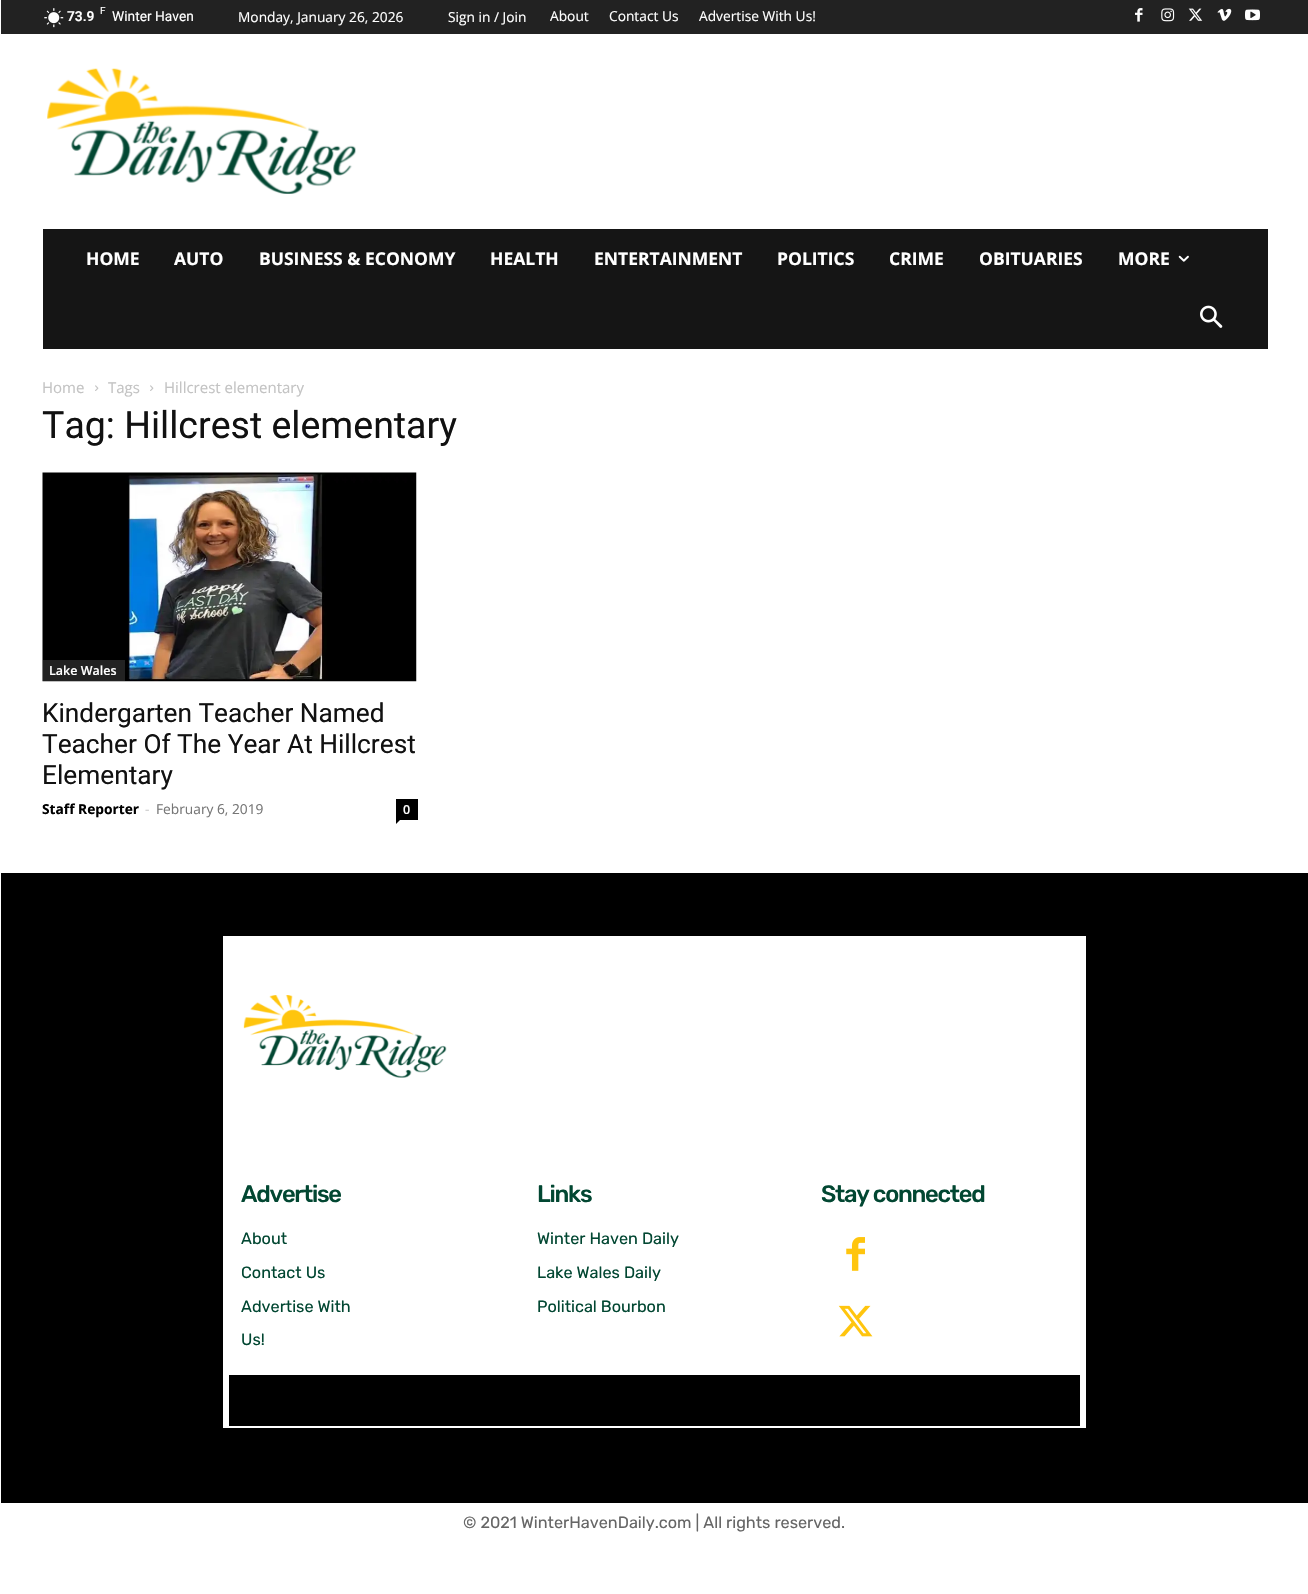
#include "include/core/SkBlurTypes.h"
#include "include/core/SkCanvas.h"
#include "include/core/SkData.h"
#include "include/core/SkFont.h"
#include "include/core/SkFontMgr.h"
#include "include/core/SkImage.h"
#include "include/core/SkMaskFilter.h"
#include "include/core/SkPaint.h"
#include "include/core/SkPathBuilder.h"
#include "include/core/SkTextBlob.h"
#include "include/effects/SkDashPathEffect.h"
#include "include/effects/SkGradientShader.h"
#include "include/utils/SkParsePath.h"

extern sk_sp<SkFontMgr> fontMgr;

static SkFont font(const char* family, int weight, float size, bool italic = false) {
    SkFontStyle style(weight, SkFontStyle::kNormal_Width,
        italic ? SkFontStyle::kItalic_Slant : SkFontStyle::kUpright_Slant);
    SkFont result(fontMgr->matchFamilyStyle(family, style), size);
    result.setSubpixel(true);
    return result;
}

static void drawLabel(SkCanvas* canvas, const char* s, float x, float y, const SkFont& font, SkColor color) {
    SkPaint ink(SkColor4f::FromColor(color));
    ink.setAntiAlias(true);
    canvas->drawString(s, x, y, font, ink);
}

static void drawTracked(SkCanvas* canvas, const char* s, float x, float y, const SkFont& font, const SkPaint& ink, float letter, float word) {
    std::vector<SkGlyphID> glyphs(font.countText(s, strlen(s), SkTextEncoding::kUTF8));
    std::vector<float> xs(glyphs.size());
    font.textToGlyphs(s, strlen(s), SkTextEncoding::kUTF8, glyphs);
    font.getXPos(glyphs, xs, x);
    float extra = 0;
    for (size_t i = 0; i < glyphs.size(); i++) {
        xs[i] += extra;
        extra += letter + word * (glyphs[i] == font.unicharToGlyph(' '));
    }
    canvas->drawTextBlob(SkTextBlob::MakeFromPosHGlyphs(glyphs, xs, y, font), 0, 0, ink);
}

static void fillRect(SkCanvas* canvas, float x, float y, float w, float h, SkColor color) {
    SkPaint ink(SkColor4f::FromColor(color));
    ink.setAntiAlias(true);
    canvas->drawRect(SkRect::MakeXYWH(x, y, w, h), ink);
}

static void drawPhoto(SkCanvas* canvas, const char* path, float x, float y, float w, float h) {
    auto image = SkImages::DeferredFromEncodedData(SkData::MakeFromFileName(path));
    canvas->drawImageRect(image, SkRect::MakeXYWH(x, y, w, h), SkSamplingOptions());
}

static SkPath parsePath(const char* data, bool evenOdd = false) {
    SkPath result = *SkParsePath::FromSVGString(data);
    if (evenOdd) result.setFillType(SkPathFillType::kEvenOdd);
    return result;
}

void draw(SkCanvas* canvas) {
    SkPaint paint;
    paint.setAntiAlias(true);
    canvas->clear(0xFFFFFFFF);
    fillRect(canvas, 1, 0, 1307, 34, 0xFF222222);
    drawPhoto(canvas, "assets/img1.png", 44, 8, 20, 20);
    SkFont font1 = font("Roboto", 400, 10);
    drawLabel(canvas, "F", 100, 14, font1, 0xFFFFFFFF);
    SkFont font2 = font("Roboto", 600, 13.75f);
    drawLabel(canvas, "73.9", 67, 21, font2, 0xFFFFFFFF);
    SkFont font3 = font("Roboto", 400, 13.75f);
    drawLabel(canvas, "Winter Haven", 112, 21, font3, 0xFFFFFFFF);
    SkFont font4 = font("Open Sans", 400, 13.75f);
    drawLabel(canvas, "Monday, January 26, 2026", 238, 22, font4, 0xFFFFFFFF);
    drawLabel(canvas, "Sign in / Join", 448, 22, font4, 0xFFFFFFFF);
    drawLabel(canvas, "About", 550, 21, font4, 0xFFFFFFFF);
    drawLabel(canvas, "Contact Us", 609, 21, font4, 0xFFFFFFFF);
    drawLabel(canvas, "Advertise With Us!", 699, 21, font4, 0xFFFFFFFF);
    drawPhoto(canvas, "assets/img2.png", 1135, 8, 8, 14);
    drawPhoto(canvas, "assets/img3.png", 1161, 8, 14, 14);
    drawPhoto(canvas, "assets/img4.png", 1188, 8, 15, 13);
    drawPhoto(canvas, "assets/img5.png", 1217, 8, 15, 13);
    drawPhoto(canvas, "assets/img6.png", 1245, 9, 15, 12);
    drawPhoto(canvas, "assets/img7.png", 47, 68, 309, 126);
    fillRect(canvas, 43, 229, 1225, 120, 0xFF151515);
    SkFont font5 = font("Open Sans", 700, 17.5f);
    drawLabel(canvas, "HOME", 86, 265, font5, 0xFFFFFFFF);
    drawLabel(canvas, "AUTO", 174, 265, font5, 0xFFFFFFFF);
    drawLabel(canvas, "BUSINESS & ECONOMY", 259, 265, font5, 0xFFFFFFFF);
    drawLabel(canvas, "HEALTH", 490, 265, font5, 0xFFFFFFFF);
    drawLabel(canvas, "ENTERTAINMENT", 594, 265, font5, 0xFFFFFFFF);
    drawLabel(canvas, "POLITICS", 777, 265, font5, 0xFFFFFFFF);
    drawLabel(canvas, "CRIME", 889, 265, font5, 0xFFFFFFFF);
    drawLabel(canvas, "OBITUARIES", 979, 265, font5, 0xFFFFFFFF);
    drawLabel(canvas, "MORE", 1118, 265, font5, 0xFFFFFFFF);
    drawPhoto(canvas, "assets/img8.png", 1178, 255, 11, 7);
    drawPhoto(canvas, "assets/img9.png", 1200, 305, 23, 23);
    SkFont font6 = font("Open Sans", 400, 15);
    drawLabel(canvas, "Home", 42, 393, font6, 0xFFC3C3C3);
    drawPhoto(canvas, "assets/img10.png", 95, 385, 4, 6);
    drawLabel(canvas, "Tags", 108, 393, font6, 0xFFC3C3C3);
    drawPhoto(canvas, "assets/img10.png", 150, 385, 4, 6);
    drawLabel(canvas, "Hillcrest elementary", 164, 393, font6, 0xFFC3C3C3);
    SkFont font7 = font("Roboto", 400, 37.5f);
    drawLabel(canvas, "Tag: Hillcrest elementary", 42, 438, font7, 0xFF111111);
    drawPhoto(canvas, "assets/img11.png", 42, 472, 375, 210);
    fillRect(canvas, 43, 660, 82, 21, 0xFF222222);
    SkFont font8 = font("Open Sans", 600, 12.5f);
    drawLabel(canvas, "Lake Wales", 49, 675, font8, 0xFFFFFFFF);
    SkFont font9 = font("Roboto", 400, 26.25f);
    drawLabel(canvas, "Kindergarten Teacher Named", 42, 722, font9, 0xFF111111);
    drawLabel(canvas, "Teacher Of The Year At Hillcrest", 42, 753, font9, 0xFF111111);
    drawLabel(canvas, "Elementary", 42, 784, font9, 0xFF111111);
    SkFont font10 = font("Open Sans", 700, 13.75f);
    drawLabel(canvas, "Staff Reporter", 42, 814, font10, 0xFF000000);
    drawLabel(canvas, "-", 145, 814, font4, 0xFFCCCCCC);
    drawLabel(canvas, "February 6, 2019", 156, 814, font4, 0xFF767676);
    fillRect(canvas, 396, 799, 22, 21, 0xFF000000);
    drawLabel(canvas, "0", 403, 814, font8, 0xFFFFFFFF);
    paint.setColor(0xFF000000);
    canvas->drawPath(parsePath("M396 820H400L396 824Z"), paint);
    fillRect(canvas, 1, 873, 1307, 630, 0xFF000000);
    fillRect(canvas, 223, 936, 863, 492, 0xFFFFFFFF);
    drawPhoto(canvas, "assets/img12.png", 243, 995, 204, 83);
    SkFont font11 = font("Rubik", 500, 23.75f);
    paint.setColor(0xFF024732);
    drawTracked(canvas, "Advertise", 241, 1202, font11, paint, -1.25f, 0);
    SkFont font12 = font("Rubik", 400, 16.25f);
    drawLabel(canvas, "About", 241, 1244, font12, 0xFF024732);
    drawLabel(canvas, "Contact Us", 241, 1278, font12, 0xFF024732);
    drawLabel(canvas, "Advertise With", 241, 1312, font12, 0xFF024732);
    drawLabel(canvas, "Us!", 241, 1345, font12, 0xFF024732);
    drawTracked(canvas, "Links", 537, 1202, font11, paint, -1.25f, 0);
    drawLabel(canvas, "Winter Haven Daily", 537, 1244, font12, 0xFF024732);
    drawLabel(canvas, "Lake Wales Daily", 537, 1278, font12, 0xFF024732);
    drawLabel(canvas, "Political Bourbon", 537, 1312, font12, 0xFF024732);
    drawTracked(canvas, "Stay connected", 821, 1202, font11, paint, -1.25f, 0);
    drawPhoto(canvas, "assets/img13.png", 846, 1237, 19, 34);
    drawPhoto(canvas, "assets/img14.png", 838, 1305, 35, 32);
    fillRect(canvas, 229, 1375, 851, 51, 0xFF000000);
    drawLabel(canvas, "© 2021 WinterHavenDaily.com | All rights reserved.", 463, 1528, font12, 0xFF666666);
}
